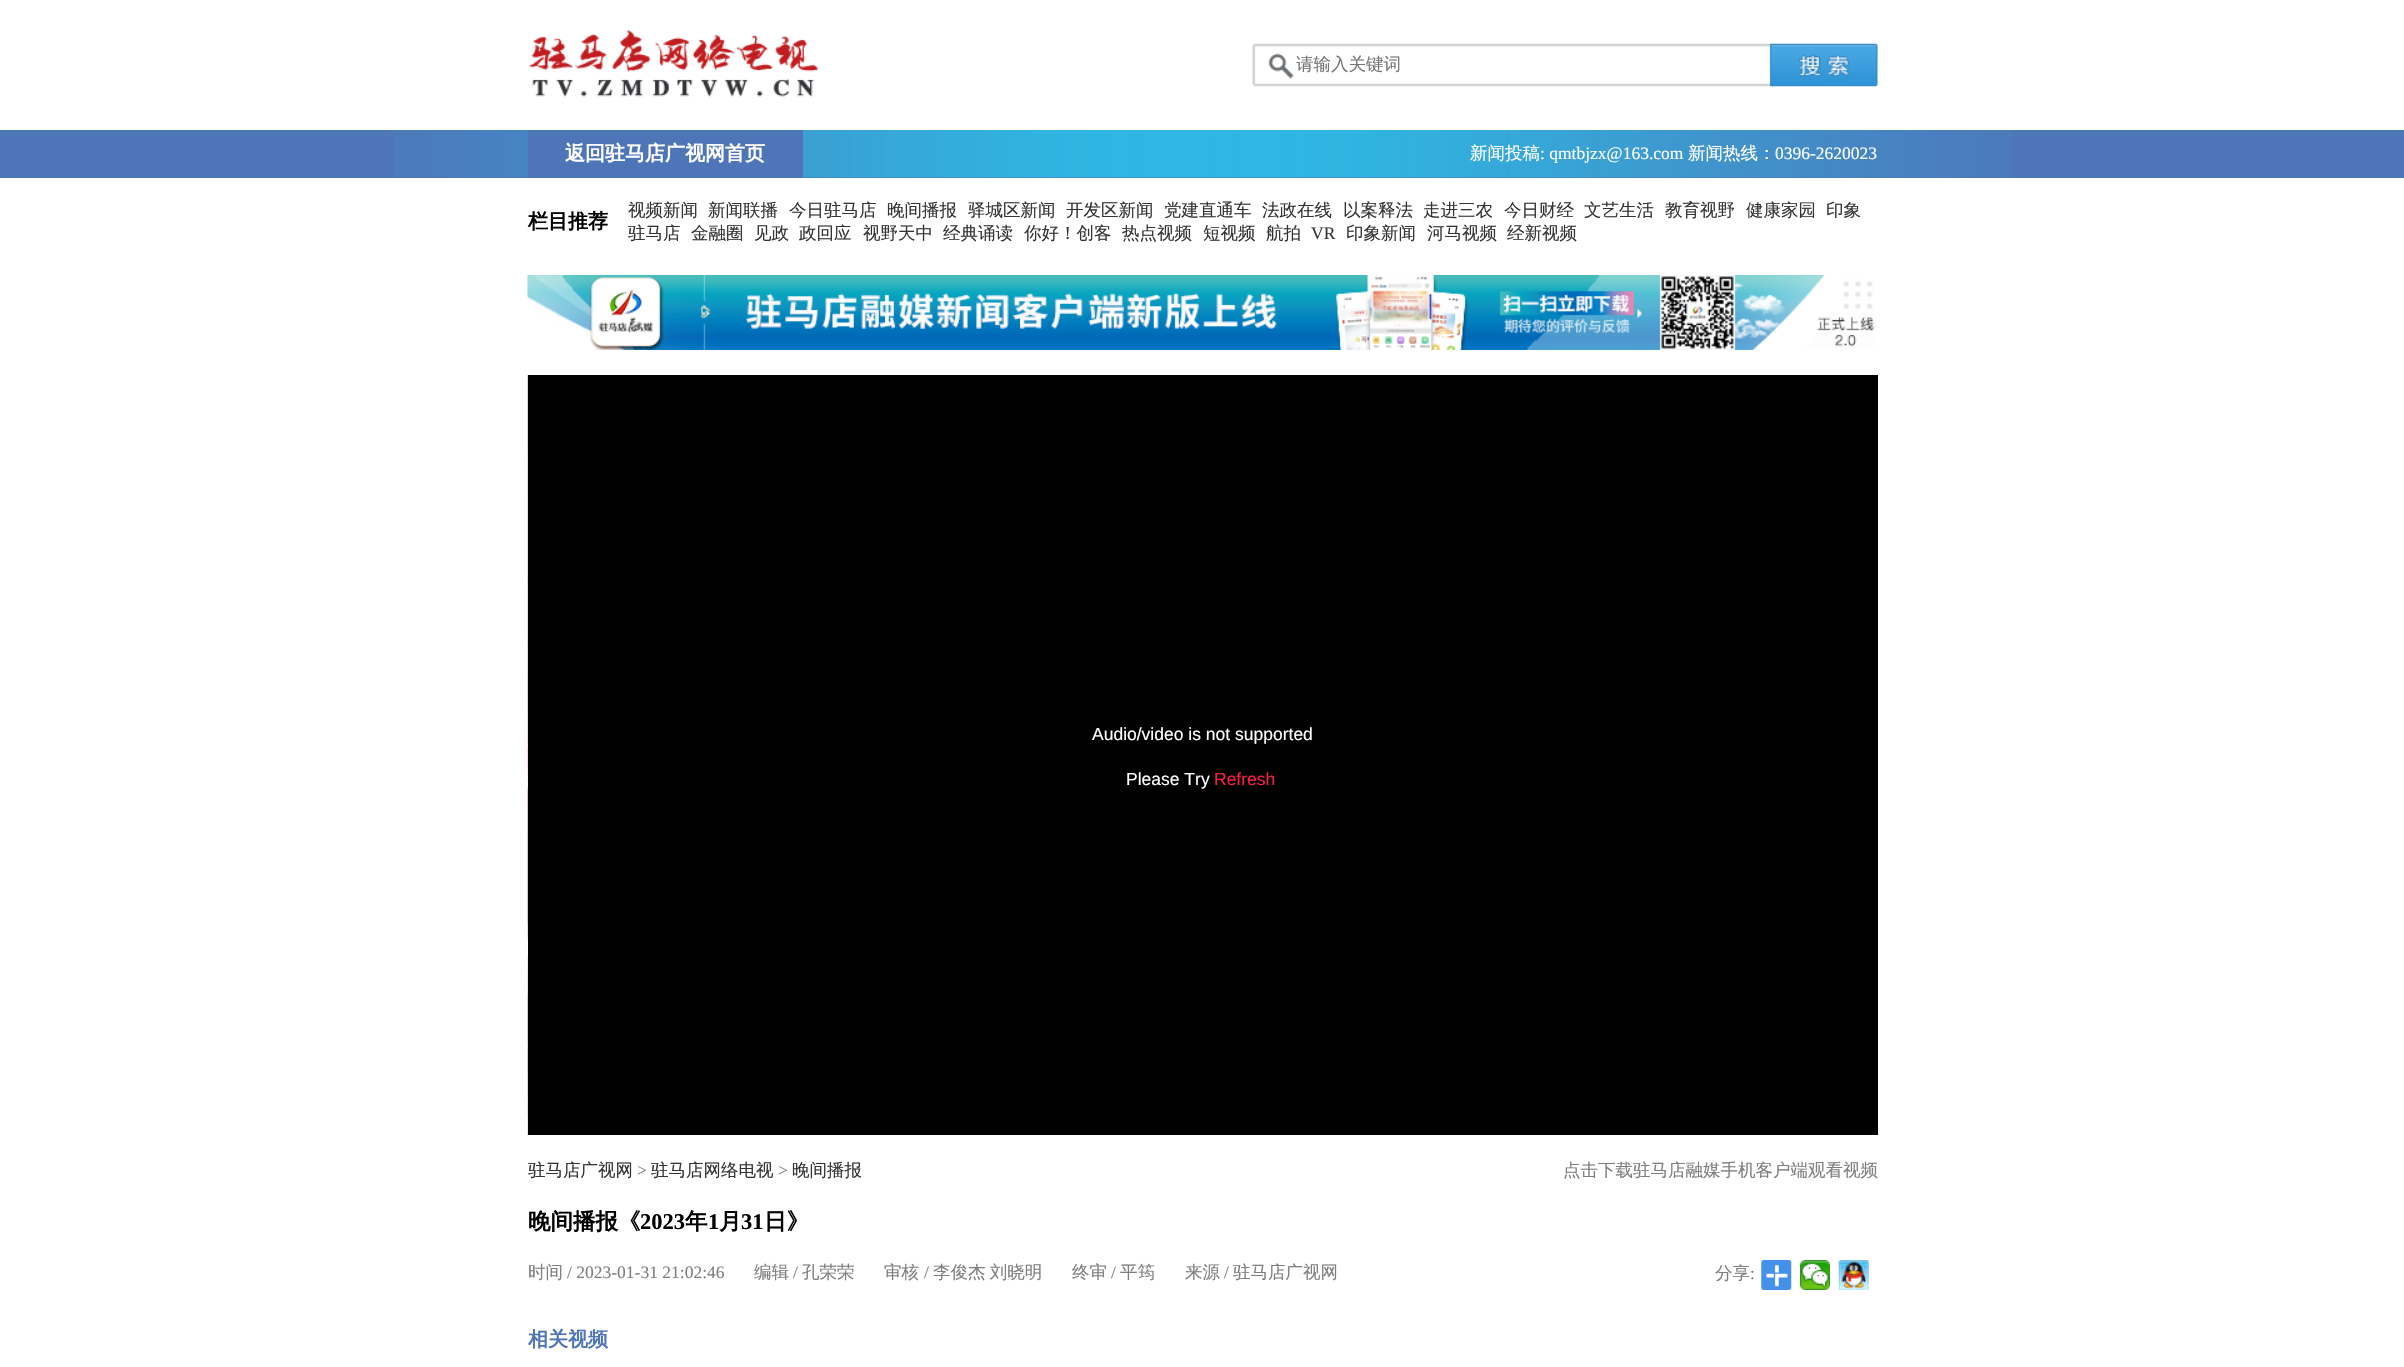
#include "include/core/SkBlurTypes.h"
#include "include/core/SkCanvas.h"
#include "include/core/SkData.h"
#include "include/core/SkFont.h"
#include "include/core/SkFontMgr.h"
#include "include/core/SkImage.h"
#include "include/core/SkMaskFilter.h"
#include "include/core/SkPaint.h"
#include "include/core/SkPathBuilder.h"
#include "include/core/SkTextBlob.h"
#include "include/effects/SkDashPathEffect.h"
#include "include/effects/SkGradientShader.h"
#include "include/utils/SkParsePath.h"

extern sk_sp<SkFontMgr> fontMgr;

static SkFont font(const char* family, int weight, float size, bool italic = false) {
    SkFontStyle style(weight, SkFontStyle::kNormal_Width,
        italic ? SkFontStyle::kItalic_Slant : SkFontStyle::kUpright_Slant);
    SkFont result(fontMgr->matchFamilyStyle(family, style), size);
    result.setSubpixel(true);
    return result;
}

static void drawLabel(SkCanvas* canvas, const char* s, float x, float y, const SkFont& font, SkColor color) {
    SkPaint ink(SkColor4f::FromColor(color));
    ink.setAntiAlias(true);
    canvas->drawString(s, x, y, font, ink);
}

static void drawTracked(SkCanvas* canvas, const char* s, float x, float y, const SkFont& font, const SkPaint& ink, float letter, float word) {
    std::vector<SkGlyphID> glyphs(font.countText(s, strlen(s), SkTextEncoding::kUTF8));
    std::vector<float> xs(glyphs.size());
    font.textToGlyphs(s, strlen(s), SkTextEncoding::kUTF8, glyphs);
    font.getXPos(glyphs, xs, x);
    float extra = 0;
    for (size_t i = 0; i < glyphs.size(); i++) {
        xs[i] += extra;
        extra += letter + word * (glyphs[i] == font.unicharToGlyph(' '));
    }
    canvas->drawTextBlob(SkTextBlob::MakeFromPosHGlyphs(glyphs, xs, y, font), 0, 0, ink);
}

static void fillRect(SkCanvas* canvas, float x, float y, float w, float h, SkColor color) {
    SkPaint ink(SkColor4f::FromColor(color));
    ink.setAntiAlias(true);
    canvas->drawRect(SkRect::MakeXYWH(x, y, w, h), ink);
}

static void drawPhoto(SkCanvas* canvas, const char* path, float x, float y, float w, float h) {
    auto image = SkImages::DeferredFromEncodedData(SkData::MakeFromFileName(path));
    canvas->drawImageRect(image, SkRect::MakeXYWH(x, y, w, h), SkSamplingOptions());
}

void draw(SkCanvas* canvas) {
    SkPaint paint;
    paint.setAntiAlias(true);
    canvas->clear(0xFFFFFFFF);
    drawPhoto(canvas, "assets/img1.png", 528, 29, 290, 68);
    drawPhoto(canvas, "assets/img2.png", 1252, 43, 626, 44);
    SkFont font1 = font("WenQuanYi Zen Hei", 500, 17.5f);
    drawLabel(canvas, "请输入关键词", 1296, 70, font1, 0xFF757575);
    fillRect(canvas, 0, 130, 2404, 48, 0xFF4E75B8);
    drawPhoto(canvas, "assets/img3.png", 393, 130, 1620, 48);
    fillRect(canvas, 528, 130, 275, 48, 0xFF4E75B8);
    SkFont font2 = font("WenQuanYi Zen Hei", 700, 20);
    drawLabel(canvas, "返回驻马店广视网首页", 565, 160, font2, 0xFFFFFFFF);
    drawLabel(canvas, "新闻投稿", 1470, 159, font1, 0xFFFFFFFF);
    SkFont font3 = font("Liberation Serif", 400, 17.5f);
    drawLabel(canvas, ": qmtbjzx@163.com", 1540, 159, font3, 0xFFFFFFFF);
    drawLabel(canvas, "新闻热线：", 1688, 159, font1, 0xFFFFFFFF);
    drawLabel(canvas, "0396-2620023", 1775, 159, font3, 0xFFFFFFFF);
    drawLabel(canvas, "栏目推荐", 528, 228, font2, 0xFF000000);
    drawLabel(canvas, "视频新闻", 628, 216, font1, 0xFF333333);
    drawLabel(canvas, "新闻联播", 708, 216, font1, 0xFF333333);
    drawLabel(canvas, "今日驻马店", 789, 216, font1, 0xFF333333);
    drawLabel(canvas, "晚间播报", 887, 216, font1, 0xFF333333);
    drawLabel(canvas, "驿城区新闻", 968, 216, font1, 0xFF333333);
    drawLabel(canvas, "开发区新闻", 1066, 216, font1, 0xFF333333);
    drawLabel(canvas, "党建直通车", 1164, 216, font1, 0xFF333333);
    drawLabel(canvas, "法政在线", 1262, 216, font1, 0xFF333333);
    drawLabel(canvas, "以案释法", 1343, 216, font1, 0xFF333333);
    drawLabel(canvas, "走进三农", 1423, 216, font1, 0xFF333333);
    drawLabel(canvas, "今日财经", 1504, 216, font1, 0xFF333333);
    drawLabel(canvas, "文艺生活", 1584, 216, font1, 0xFF333333);
    drawLabel(canvas, "教育视野", 1665, 216, font1, 0xFF333333);
    drawLabel(canvas, "健康家园", 1746, 216, font1, 0xFF333333);
    drawLabel(canvas, "印象", 1826, 216, font1, 0xFF333333);
    drawLabel(canvas, "驻马店", 628, 239, font1, 0xFF333333);
    drawLabel(canvas, "金融圈", 691, 239, font1, 0xFF333333);
    drawLabel(canvas, "见政", 754, 239, font1, 0xFF333333);
    drawLabel(canvas, "政回应", 799, 239, font1, 0xFF333333);
    drawLabel(canvas, "视野天中", 863, 239, font1, 0xFF333333);
    drawLabel(canvas, "经典诵读", 943, 239, font1, 0xFF333333);
    drawLabel(canvas, "你好！创客", 1024, 239, font1, 0xFF333333);
    drawLabel(canvas, "热点视频", 1122, 239, font1, 0xFF333333);
    drawLabel(canvas, "短视频", 1203, 239, font1, 0xFF333333);
    drawLabel(canvas, "航拍", 1266, 239, font1, 0xFF333333);
    drawLabel(canvas, "VR", 1311, 239, font3, 0xFF333333);
    drawLabel(canvas, "印象新闻", 1346, 239, font1, 0xFF333333);
    drawLabel(canvas, "河马视频", 1427, 239, font1, 0xFF333333);
    drawLabel(canvas, "经新视频", 1507, 239, font1, 0xFF333333);
    drawPhoto(canvas, "assets/img4.png", 527, 275, 1347, 75);
    drawPhoto(canvas, "assets/img5.png", 527, 375, 1, 760);
    fillRect(canvas, 528, 375, 1350, 760, 0xFF000000);
    SkFont font4 = font("Liberation Sans", 400, 17.5f);
    drawLabel(canvas, "Audio/video is not supported", 1092, 740, font4, 0xFFFFFFFF);
    drawLabel(canvas, "Please Try", 1126, 785, font4, 0xFFFFFFFF);
    drawLabel(canvas, "Refresh", 1214, 785, font4, 0xFFFA1F41);
    drawLabel(canvas, "驻马店广视网", 528, 1176, font1, 0xFF333333);
    drawLabel(canvas, ">", 637, 1176, font3, 0xFF7E7E7E);
    drawLabel(canvas, "驻马店网络电视", 651, 1176, font1, 0xFF333333);
    drawLabel(canvas, ">", 778, 1176, font3, 0xFF7E7E7E);
    drawLabel(canvas, "晚间播报", 792, 1176, font1, 0xFF333333);
    drawLabel(canvas, "点击下载驻马店融媒手机客户端观看视频", 1563, 1176, font1, 0xFF7E7E7E);
    SkFont font5 = font("WenQuanYi Zen Hei", 700, 22.5f);
    drawLabel(canvas, "晚间播报《", 528, 1229, font5, 0xFF000000);
    SkFont font6 = font("Liberation Serif", 700, 22.5f);
    drawLabel(canvas, "2023", 640, 1229, font6, 0xFF000000);
    drawLabel(canvas, "年", 685, 1229, font5, 0xFF000000);
    drawLabel(canvas, "1", 708, 1229, font6, 0xFF000000);
    drawLabel(canvas, "月", 719, 1229, font5, 0xFF000000);
    drawLabel(canvas, "31", 741, 1229, font6, 0xFF000000);
    drawLabel(canvas, "日》", 764, 1229, font5, 0xFF000000);
    drawLabel(canvas, "时间", 528, 1278, font1, 0xFF7E7E7E);
    drawLabel(canvas, "/ 2023-01-31 21:02:46", 567, 1278, font3, 0xFF7E7E7E);
    drawLabel(canvas, "编辑", 754, 1278, font1, 0xFF7E7E7E);
    drawLabel(canvas, "/", 793, 1278, font3, 0xFF7E7E7E);
    drawLabel(canvas, "孔荣荣", 802, 1278, font1, 0xFF7E7E7E);
    drawLabel(canvas, "审核", 884, 1278, font1, 0xFF7E7E7E);
    drawLabel(canvas, "/", 924, 1278, font3, 0xFF7E7E7E);
    paint.setColor(0xFF7E7E7E);
    drawTracked(canvas, "李俊杰 刘晓明", 933, 1278, font1, paint, 0, -1);
    drawLabel(canvas, "终审", 1072, 1278, font1, 0xFF7E7E7E);
    drawLabel(canvas, "/", 1111, 1278, font3, 0xFF7E7E7E);
    drawLabel(canvas, "平筠", 1120, 1278, font1, 0xFF7E7E7E);
    drawLabel(canvas, "来源", 1185, 1278, font1, 0xFF7E7E7E);
    drawLabel(canvas, "/", 1224, 1278, font3, 0xFF7E7E7E);
    drawLabel(canvas, "驻马店广视网", 1233, 1278, font1, 0xFF7E7E7E);
    drawLabel(canvas, "分享", 1715, 1279, font1, 0xFF7E7E7E);
    drawLabel(canvas, ":", 1750, 1279, font3, 0xFF7E7E7E);
    drawPhoto(canvas, "assets/img6.png", 1761, 1260, 31, 30);
    drawPhoto(canvas, "assets/img7.png", 1800, 1260, 30, 30);
    drawPhoto(canvas, "assets/img8.png", 1838, 1260, 31, 30);
    drawLabel(canvas, "相关视频", 528, 1346, font2, 0xFF4E75B8);
}
